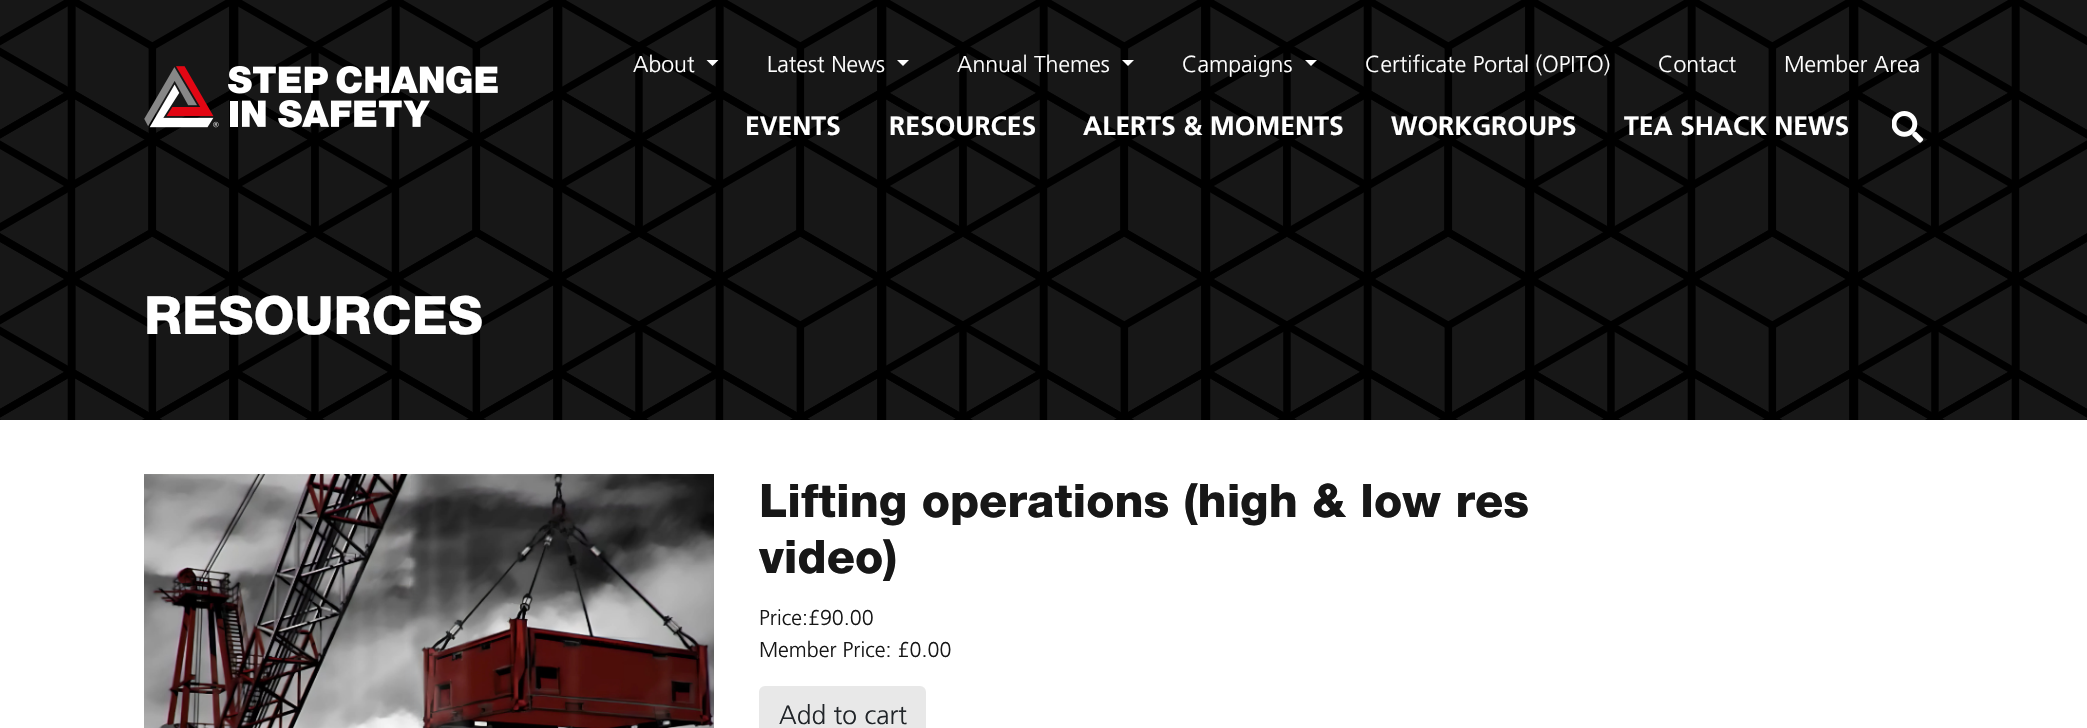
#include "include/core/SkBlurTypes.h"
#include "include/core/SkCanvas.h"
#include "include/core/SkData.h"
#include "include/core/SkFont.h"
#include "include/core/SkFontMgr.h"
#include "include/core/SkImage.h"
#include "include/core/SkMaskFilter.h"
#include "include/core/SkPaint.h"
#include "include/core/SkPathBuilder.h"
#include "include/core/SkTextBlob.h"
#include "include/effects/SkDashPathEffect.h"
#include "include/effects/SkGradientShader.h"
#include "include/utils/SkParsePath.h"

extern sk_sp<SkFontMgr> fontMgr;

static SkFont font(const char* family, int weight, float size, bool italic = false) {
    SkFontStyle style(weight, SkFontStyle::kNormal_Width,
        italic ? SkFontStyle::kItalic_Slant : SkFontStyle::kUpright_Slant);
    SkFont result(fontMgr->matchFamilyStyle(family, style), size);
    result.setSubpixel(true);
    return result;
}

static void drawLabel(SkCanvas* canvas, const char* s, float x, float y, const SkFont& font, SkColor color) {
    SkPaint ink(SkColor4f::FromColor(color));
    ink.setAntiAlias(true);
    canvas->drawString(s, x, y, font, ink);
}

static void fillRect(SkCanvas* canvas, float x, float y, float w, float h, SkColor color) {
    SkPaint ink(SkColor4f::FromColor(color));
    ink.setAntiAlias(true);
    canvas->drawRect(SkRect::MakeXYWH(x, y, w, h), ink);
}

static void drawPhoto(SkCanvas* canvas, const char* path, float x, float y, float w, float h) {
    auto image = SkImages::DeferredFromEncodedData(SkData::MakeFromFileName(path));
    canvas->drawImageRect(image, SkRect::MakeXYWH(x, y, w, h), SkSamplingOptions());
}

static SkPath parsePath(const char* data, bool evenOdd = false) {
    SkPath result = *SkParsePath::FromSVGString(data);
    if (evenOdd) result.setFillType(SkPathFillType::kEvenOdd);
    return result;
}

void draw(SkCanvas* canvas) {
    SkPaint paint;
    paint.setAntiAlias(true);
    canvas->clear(0xFF171717);
    drawPhoto(canvas, "assets/img1.png", 0, 0, 2087, 420);
    drawPhoto(canvas, "assets/img2.png", 144, 66, 354, 62);
    SkFont font1 = font("Frutiger", 300, 23.1f);
    drawLabel(canvas, "About", 633, 72, font1, 0xFFFFFFFF);
    paint.setColor(0xFFFFFFFF);
    canvas->drawPath(parsePath("M706.5 60H718.5L712.5 66Z"), paint);
    drawLabel(canvas, "Latest News", 767, 72, font1, 0xFFFFFFFF);
    canvas->drawPath(parsePath("M897 60H909L903 66Z"), paint);
    drawLabel(canvas, "Annual Themes", 957, 72, font1, 0xFFFFFFFF);
    canvas->drawPath(parsePath("M1122 60H1134L1128 66Z"), paint);
    drawLabel(canvas, "Campaigns", 1182, 72, font1, 0xFFFFFFFF);
    canvas->drawPath(parsePath("M1305 60H1317L1311 66Z"), paint);
    drawLabel(canvas, "Certificate Portal (OPITO)", 1365, 72, font1, 0xFFFFFFFF);
    drawLabel(canvas, "Contact", 1658, 72, font1, 0xFFFFFFFF);
    drawLabel(canvas, "Member Area", 1784, 72, font1, 0xFFFFFFFF);
    SkFont font2 = font("Frutiger", 700, 26.5f);
    drawLabel(canvas, "EVENTS", 745, 135, font2, 0xFFFFFFFF);
    drawLabel(canvas, "RESOURCES", 889, 135, font2, 0xFFFFFFFF);
    drawLabel(canvas, "ALERTS & MOMENTS", 1083, 135, font2, 0xFFFFFFFF);
    drawLabel(canvas, "WORKGROUPS", 1391, 135, font2, 0xFFFFFFFF);
    drawLabel(canvas, "TEA SHACK NEWS", 1624, 135, font2, 0xFFFFFFFF);
    drawPhoto(canvas, "assets/img3.png", 1892, 111, 32, 32);
    SkFont font3 = font("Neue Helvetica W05", 900, 52.75f);
    drawLabel(canvas, "RESOURCES", 144, 334, font3, 0xFFFFFFFF);
    fillRect(canvas, 0, 420, 2087, 308, 0xFFFFFFFF);
    drawPhoto(canvas, "assets/img4.png", 144, 474, 570, 254);
    SkFont font4 = font("Neue Helvetica W05", 900, 46.25f);
    drawLabel(canvas, "Lifting operations (high & low res", 759, 517, font4, 0xFF171717);
    drawLabel(canvas, "video)", 759, 573, font4, 0xFF171717);
    SkFont font5 = font("Frutiger", 300, 21.5f);
    drawLabel(canvas, "Price:£90.00", 759, 625, font5, 0xFF171717);
    drawLabel(canvas, "Member Price: £0.00", 759, 657, font5, 0xFF171717);
    paint.setColor(0xFFE8E8E8);
    canvas->drawRoundRect(SkRect::MakeXYWH(760, 687, 165, 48), 5, 5, paint);
    paint.setStroke(true);
    paint.setStrokeWidth(2);
    canvas->drawRoundRect(SkRect::MakeXYWH(760, 687, 165, 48), 5, 5, paint);
    SkFont font6 = font("Frutiger", 300, 26.5f);
    drawLabel(canvas, "Add to cart", 779, 724, font6, 0xFF212529);
}
